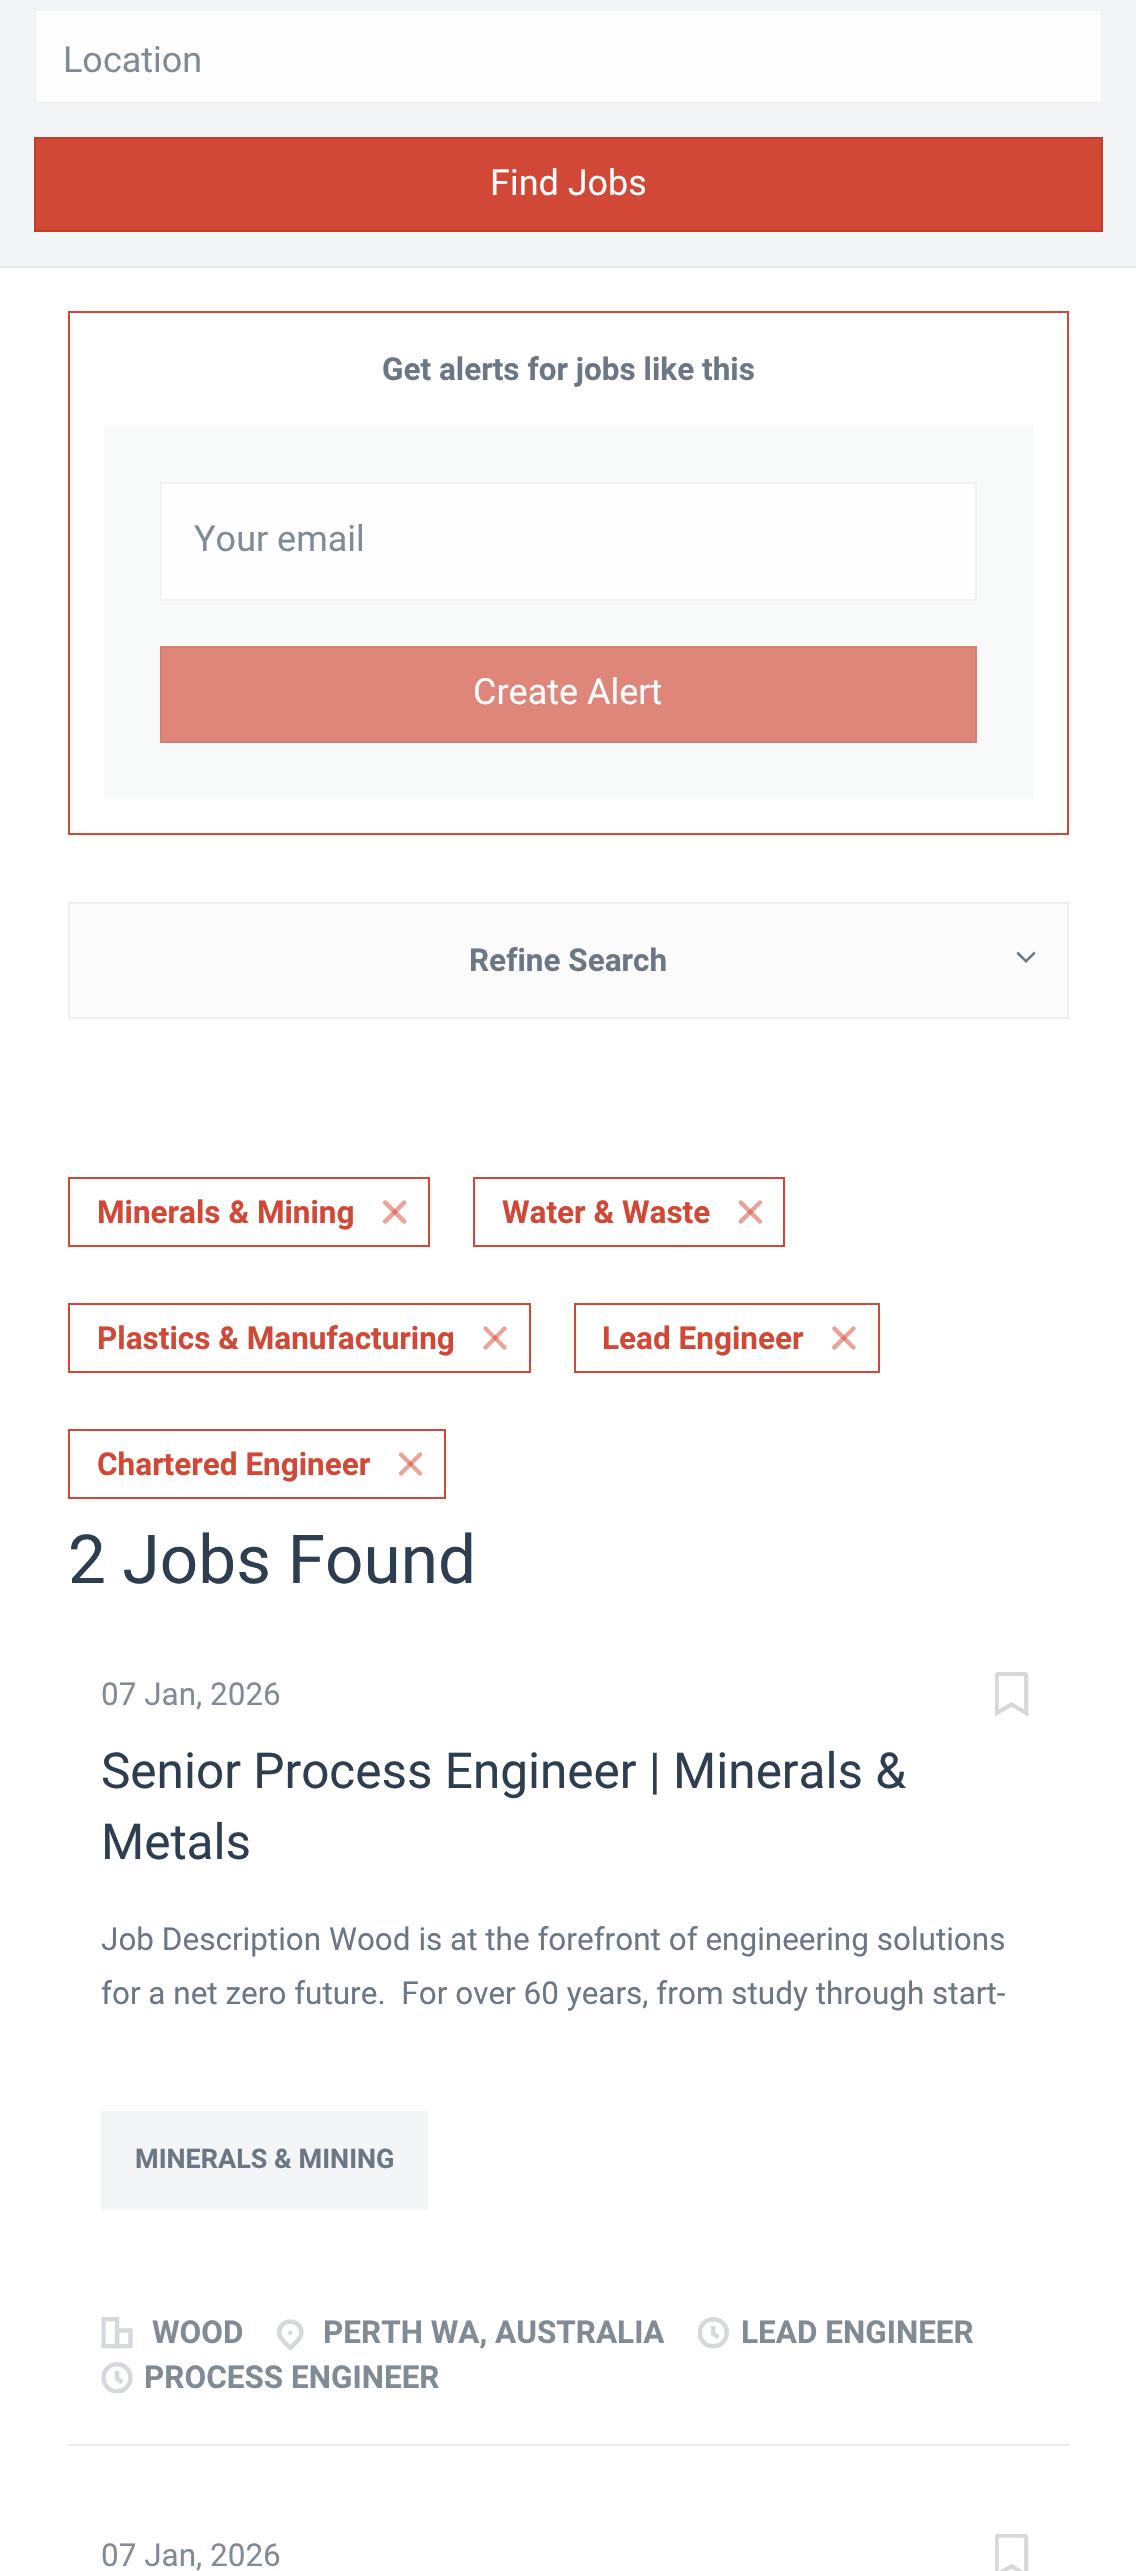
#include "include/core/SkBlurTypes.h"
#include "include/core/SkCanvas.h"
#include "include/core/SkData.h"
#include "include/core/SkFont.h"
#include "include/core/SkFontMgr.h"
#include "include/core/SkImage.h"
#include "include/core/SkMaskFilter.h"
#include "include/core/SkPaint.h"
#include "include/core/SkPathBuilder.h"
#include "include/core/SkTextBlob.h"
#include "include/effects/SkDashPathEffect.h"
#include "include/effects/SkGradientShader.h"
#include "include/utils/SkParsePath.h"

extern sk_sp<SkFontMgr> fontMgr;

static SkFont font(const char* family, int weight, float size, bool italic = false) {
    SkFontStyle style(weight, SkFontStyle::kNormal_Width,
        italic ? SkFontStyle::kItalic_Slant : SkFontStyle::kUpright_Slant);
    SkFont result(fontMgr->matchFamilyStyle(family, style), size);
    result.setSubpixel(true);
    return result;
}

static void drawLabel(SkCanvas* canvas, const char* s, float x, float y, const SkFont& font, SkColor color) {
    SkPaint ink(SkColor4f::FromColor(color));
    ink.setAntiAlias(true);
    canvas->drawString(s, x, y, font, ink);
}

static void fillRect(SkCanvas* canvas, float x, float y, float w, float h, SkColor color) {
    SkPaint ink(SkColor4f::FromColor(color));
    ink.setAntiAlias(true);
    canvas->drawRect(SkRect::MakeXYWH(x, y, w, h), ink);
}

static void drawPhoto(SkCanvas* canvas, const char* path, float x, float y, float w, float h) {
    auto image = SkImages::DeferredFromEncodedData(SkData::MakeFromFileName(path));
    canvas->drawImageRect(image, SkRect::MakeXYWH(x, y, w, h), SkSamplingOptions());
}

static SkPath parsePath(const char* data, bool evenOdd = false) {
    SkPath result = *SkParsePath::FromSVGString(data);
    if (evenOdd) result.setFillType(SkPathFillType::kEvenOdd);
    return result;
}

void draw(SkCanvas* canvas) {
    SkPaint paint;
    paint.setAntiAlias(true);
    canvas->clear(0xFFFFFFFF);
    fillRect(canvas, 0, 266, 1136, 2, 0xFFEAEBEB);
    fillRect(canvas, 0, 0, 1136, 266, 0xFFF4F5F6);
    paint.setColor(0xFFFDFDFD);
    canvas->drawRect(SkRect::MakeXYWH(35, 10, 1067, 93), paint);
    paint.setStroke(true);
    paint.setStrokeWidth(2);
    paint.setColor(0xFFF2F2F2);
    canvas->drawRect(SkRect::MakeXYWH(35, 10, 1067, 93), paint);
    SkFont font1 = font("Roboto", 400, 36);
    drawLabel(canvas, "Location", 63, 72, font1, 0xFF818B96);
    paint.setStroke(false);
    paint.setColor(0xFFD14836);
    canvas->drawRect(SkRect::MakeXYWH(35, 138, 1067, 93), paint);
    paint.setStroke(true);
    paint.setColor(0xFFC13E2C);
    canvas->drawRect(SkRect::MakeXYWH(35, 138, 1067, 93), paint);
    drawLabel(canvas, "Find Jobs", 490, 195, font1, 0xFFFDFDFD);
    fillRect(canvas, 68, 311, 1001, 2, 0xFFD14836);
    fillRect(canvas, 1067, 311, 2, 114, 0xFFD14836);
    fillRect(canvas, 68, 311, 2, 114, 0xFFD14836);
    SkFont font2 = font("Roboto", 700, 31.5f);
    drawLabel(canvas, "Get alerts for jobs like this", 382, 380, font2, 0xFF6B7785);
    fillRect(canvas, 1067, 425, 2, 410, 0xFFD14836);
    fillRect(canvas, 68, 833, 1001, 2, 0xFFD14836);
    fillRect(canvas, 68, 425, 2, 410, 0xFFD14836);
    fillRect(canvas, 104, 425, 929, 374, 0xFFF8F9F9);
    paint.setStroke(false);
    paint.setColor(0xFFFEFEFE);
    canvas->drawRect(SkRect::MakeXYWH(161, 483, 815, 117), paint);
    paint.setStroke(true);
    paint.setColor(0xFFF2F2F2);
    canvas->drawRect(SkRect::MakeXYWH(161, 483, 815, 117), paint);
    drawLabel(canvas, "Your email", 194, 551, font1, 0xFF818B96);
    paint.setStroke(false);
    paint.setColor(0xFFDF867A);
    canvas->drawRect(SkRect::MakeXYWH(161, 647, 815, 95), paint);
    paint.setStroke(true);
    paint.setColor(0xFFD47F74);
    canvas->drawRect(SkRect::MakeXYWH(161, 647, 815, 95), paint);
    drawLabel(canvas, "Create Alert", 473, 704, font1, 0xFFFDFDFD);
    paint.setStroke(false);
    paint.setColor(0xFFFBFBFB);
    canvas->drawRect(SkRect::MakeXYWH(69, 903, 999, 115), paint);
    paint.setStroke(true);
    paint.setColor(0xFFEEEEEE);
    canvas->drawRect(SkRect::MakeXYWH(69, 903, 999, 115), paint);
    drawLabel(canvas, "Refine Search", 469, 971, font2, 0xFF6B7785);
    paint.setStroke(false);
    paint.setColor(0xFF6A7683);
    canvas->drawPath(parsePath("M1035.5 953.5L1026 963V959.5L1034 951.5ZM1026 963L1016.5 953.5L1018 951.5L1026 959.5Z"), paint);
    paint.setStroke(true);
    paint.setColor(0xFFD14836);
    canvas->drawRect(SkRect::MakeXYWH(69, 1178, 360, 68), paint);
    drawLabel(canvas, "Minerals & Mining", 97, 1223, font2, 0xFFD14836);
    paint.setStroke(false);
    paint.setColor(0xFFE8A49B);
    canvas->drawPath(parsePath("M383.5 1220L402.5 1201C403.5 1200 405 1200 406 1201C406.5 1202 406.5 1203 406 1204L387 1223C386 1224 384.5 1224 383.5 1223C382.5 1222.5 382.5 1221 383.5 1220Z"), paint);
    paint.setColor(0x80D14836);
    canvas->drawPath(parsePath("M387 1201L406 1220C406.5 1221 406.5 1222.5 406 1223C405 1224 403.5 1224 402.5 1223L383.5 1204C382.5 1203 382.5 1202 383.5 1201C384.5 1200 386 1200 387 1201Z"), paint);
    paint.setStroke(true);
    paint.setColor(0xFFD14836);
    canvas->drawRect(SkRect::MakeXYWH(474, 1178, 310, 68), paint);
    drawLabel(canvas, "Water & Waste", 502, 1223, font2, 0xFFD14836);
    paint.setStroke(false);
    paint.setColor(0xFFE8A49B);
    canvas->drawPath(parsePath("M739 1220L758.5 1201C759 1200 760.5 1200 761.5 1201C762.5 1202 762.5 1203 761.5 1204L742.5 1223C741.5 1224 740 1224 739 1223C738.5 1222.5 738.5 1221 739 1220Z"), paint);
    paint.setColor(0x80D14836);
    canvas->drawPath(parsePath("M742.5 1201L761.5 1220C762.5 1221 762.5 1222.5 761.5 1223C760.5 1224 759 1224 758.5 1223L739 1204C738.5 1203 738.5 1202 739 1201C740 1200 741.5 1200 742.5 1201Z"), paint);
    paint.setStroke(true);
    paint.setColor(0xFFD14836);
    canvas->drawRect(SkRect::MakeXYWH(69, 1304, 461, 68), paint);
    drawLabel(canvas, "Plastics & Manufacturing", 97, 1349, font2, 0xFFD14836);
    paint.setStroke(false);
    paint.setColor(0xFFE8A49B);
    canvas->drawPath(parsePath("M484 1346L503 1327C504 1326 505.5 1326 506 1327C507 1328 507 1329 506 1330L487 1349C486 1350 485 1350 484 1349C483 1348.5 483 1347 484 1346Z"), paint);
    paint.setColor(0x80D14836);
    canvas->drawPath(parsePath("M487 1327L506 1346C507 1347 507 1348.5 506 1349C505.5 1350 504 1350 503 1349L484 1330C483 1329 483 1328 484 1327C485 1326 486 1326 487 1327Z"), paint);
    paint.setStroke(true);
    paint.setColor(0xFFD14836);
    canvas->drawRect(SkRect::MakeXYWH(575, 1304, 304, 68), paint);
    drawLabel(canvas, "Lead Engineer", 602, 1349, font2, 0xFFD14836);
    paint.setStroke(false);
    paint.setColor(0xFFE8A49B);
    canvas->drawPath(parsePath("M832.5 1346L852 1327C852.5 1326 854 1326 855 1327C856 1328 856 1329 855 1330L836 1349C835 1350 833.5 1350 832.5 1349C832 1348.5 832 1347 832.5 1346Z"), paint);
    paint.setColor(0x80D14836);
    canvas->drawPath(parsePath("M836 1327L855 1346C856 1347 856 1348.5 855 1349C854 1350 852.5 1350 852 1349L832.5 1330C832 1329 832 1328 832.5 1327C833.5 1326 835 1326 836 1327Z"), paint);
    paint.setStroke(true);
    paint.setColor(0xFFD14836);
    canvas->drawRect(SkRect::MakeXYWH(69, 1430, 376, 68), paint);
    drawLabel(canvas, "Chartered Engineer", 97, 1475, font2, 0xFFD14836);
    paint.setStroke(false);
    paint.setColor(0xFFE8A49B);
    canvas->drawPath(parsePath("M399.5 1472L418.5 1453C419.5 1452 421 1452 421.5 1453C422.5 1454 422.5 1455 421.5 1456L402.5 1475C401.5 1476 400.5 1476 399.5 1475C398.5 1474.5 398.5 1473 399.5 1472Z"), paint);
    paint.setColor(0x80D14836);
    canvas->drawPath(parsePath("M402.5 1453L421.5 1472C422.5 1473 422.5 1474.5 421.5 1475C421 1476 419.5 1476 418.5 1475L399.5 1456C398.5 1455 398.5 1454 399.5 1453C400.5 1452 401.5 1452 402.5 1453Z"), paint);
    SkFont font3 = font("Roboto", 400, 67.5f);
    drawLabel(canvas, "2 Jobs Found", 68, 1583, font3, 0xFF2D3E50);
    fillRect(canvas, 68, 2444, 1001, 2, 0xFFEAEBED);
    SkFont font4 = font("Roboto", 400, 31.5f);
    drawLabel(canvas, "07 Jan, 2026", 101, 1705, font4, 0xFF818B96);
    drawPhoto(canvas, "assets/img1.png", 995, 1672, 34, 45);
    SkFont font5 = font("Roboto", 400, 49.5f);
    drawLabel(canvas, "Senior Process Engineer | Minerals &", 101, 1788, font5, 0xFF2D3E50);
    drawLabel(canvas, "Metals", 101, 1859, font5, 0xFF2D3E50);
    drawLabel(canvas, "Job Description Wood is at the forefront of engineering solutions", 101, 1950, font4, 0xFF6B7785);
    drawLabel(canvas, "for a net zero future.  For over 60 years, from study through start-", 101, 2004, font4, 0xFF6B7785);
    fillRect(canvas, 101, 2111, 327, 99, 0xFFF4F5F6);
    SkFont font6 = font("Roboto", 700, 27);
    drawLabel(canvas, "MINERALS & MINING", 135, 2168, font6, 0xFF6B7785);
    drawPhoto(canvas, "assets/img2.png", 101, 2317, 32, 32);
    drawLabel(canvas, "WOOD", 152, 2343, font2, 0xFF818B96);
    drawPhoto(canvas, "assets/img3.png", 277, 2319, 27, 32);
    drawLabel(canvas, "PERTH WA, AUSTRALIA", 323, 2343, font2, 0xFF818B96);
    drawPhoto(canvas, "assets/img4.png", 698, 2317, 31, 32);
    drawLabel(canvas, "LEAD ENGINEER", 741, 2343, font2, 0xFF818B96);
    drawPhoto(canvas, "assets/img5.png", 101, 2362, 32, 32);
    drawLabel(canvas, "PROCESS ENGINEER", 144, 2388, font2, 0xFF818B96);
    drawLabel(canvas, "07 Jan, 2026", 101, 2566, font4, 0xFF818B96);
    drawPhoto(canvas, "assets/img6.png", 995, 2534, 34, 37);
}
